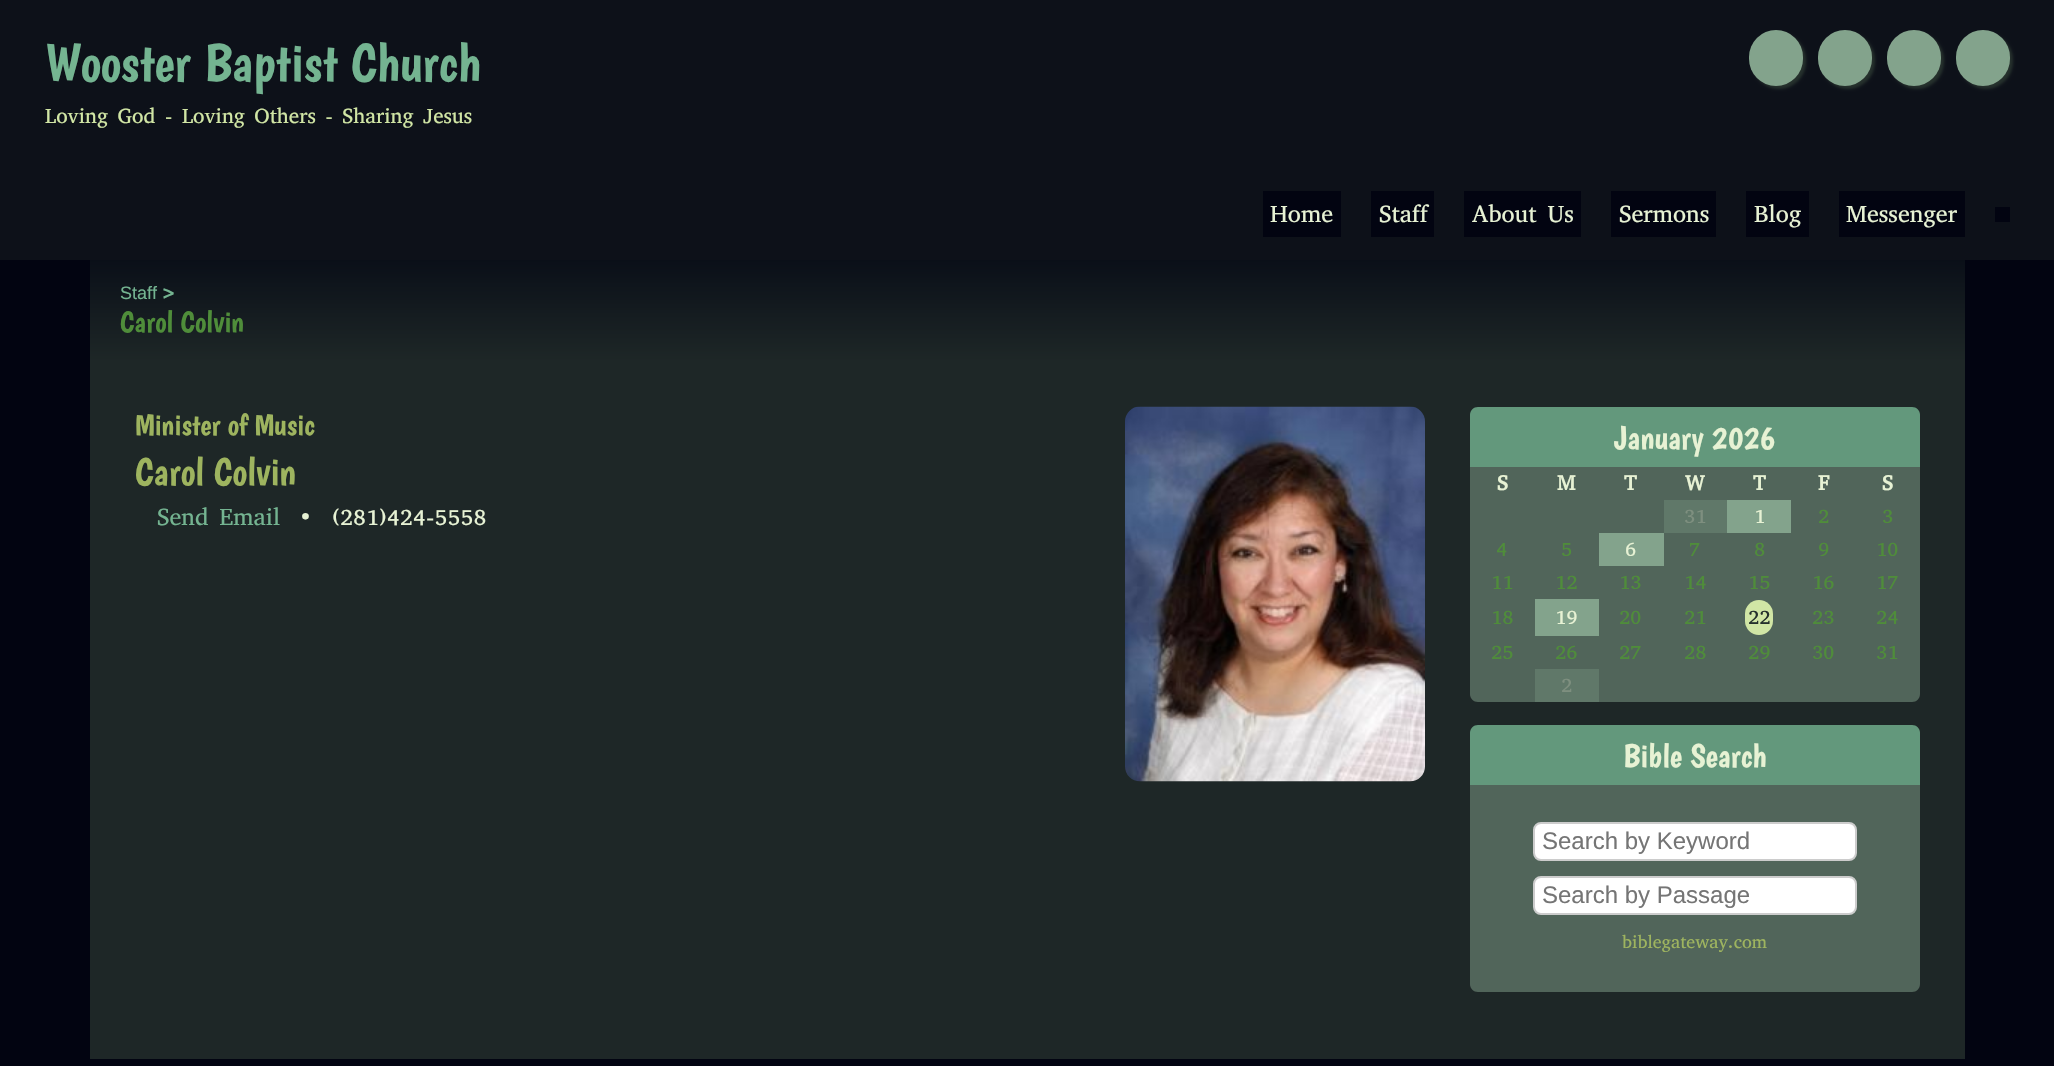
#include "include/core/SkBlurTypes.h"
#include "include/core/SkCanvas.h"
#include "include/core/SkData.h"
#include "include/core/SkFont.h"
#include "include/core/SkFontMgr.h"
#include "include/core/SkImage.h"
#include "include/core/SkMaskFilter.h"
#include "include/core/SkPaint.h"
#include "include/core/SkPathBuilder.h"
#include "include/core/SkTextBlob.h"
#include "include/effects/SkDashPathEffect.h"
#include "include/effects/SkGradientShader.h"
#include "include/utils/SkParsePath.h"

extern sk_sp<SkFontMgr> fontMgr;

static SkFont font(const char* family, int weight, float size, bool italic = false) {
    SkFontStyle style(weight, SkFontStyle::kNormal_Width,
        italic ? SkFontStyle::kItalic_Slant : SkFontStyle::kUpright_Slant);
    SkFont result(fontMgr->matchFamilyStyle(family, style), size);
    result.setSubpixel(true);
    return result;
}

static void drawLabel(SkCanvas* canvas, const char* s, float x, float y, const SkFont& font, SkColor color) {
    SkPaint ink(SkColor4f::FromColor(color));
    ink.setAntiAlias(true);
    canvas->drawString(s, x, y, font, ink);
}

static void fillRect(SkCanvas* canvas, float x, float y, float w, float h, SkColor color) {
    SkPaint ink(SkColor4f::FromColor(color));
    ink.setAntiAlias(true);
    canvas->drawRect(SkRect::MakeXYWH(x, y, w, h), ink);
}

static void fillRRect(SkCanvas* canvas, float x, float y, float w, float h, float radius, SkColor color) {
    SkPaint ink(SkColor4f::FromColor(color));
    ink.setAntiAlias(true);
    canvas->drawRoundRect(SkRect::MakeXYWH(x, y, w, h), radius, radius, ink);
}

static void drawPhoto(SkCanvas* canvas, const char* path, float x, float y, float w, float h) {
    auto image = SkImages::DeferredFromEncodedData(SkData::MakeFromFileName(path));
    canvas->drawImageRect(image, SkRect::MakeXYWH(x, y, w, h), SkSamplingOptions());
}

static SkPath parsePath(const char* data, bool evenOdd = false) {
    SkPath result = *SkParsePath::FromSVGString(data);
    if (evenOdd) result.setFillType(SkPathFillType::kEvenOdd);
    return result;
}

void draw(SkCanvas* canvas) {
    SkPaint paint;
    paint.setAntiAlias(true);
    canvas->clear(0xFF020411);
    fillRect(canvas, 0, 0, 2054, 260, 0xFF0D1119);
    SkFont font1 = font("Boogaloo", 400, 54);
    drawLabel(canvas, "Wooster Baptist Church", 45, 81, font1, 0xFF74B491);
    paint.setColor(0xFF25302C);
    paint.setMaskFilter(SkMaskFilter::MakeBlur(kNormal_SkBlurStyle, 1.5f));
    canvas->drawRoundRect(SkRect::MakeXYWH(1752, 33, 54, 56), 27, 27, paint);
    paint.setMaskFilter(nullptr);
    fillRRect(canvas, 1749, 30, 54, 56, 27, 0xFF83A38C);
    paint.setMaskFilter(SkMaskFilter::MakeBlur(kNormal_SkBlurStyle, 1.5f));
    canvas->drawRoundRect(SkRect::MakeXYWH(1821, 33, 54, 56), 27, 27, paint);
    paint.setMaskFilter(nullptr);
    fillRRect(canvas, 1818, 30, 54, 56, 27, 0xFF83A38C);
    paint.setMaskFilter(SkMaskFilter::MakeBlur(kNormal_SkBlurStyle, 1.5f));
    canvas->drawRoundRect(SkRect::MakeXYWH(1890, 33, 54, 56), 27, 27, paint);
    paint.setMaskFilter(nullptr);
    fillRRect(canvas, 1887, 30, 54, 56, 27, 0xFF83A38C);
    paint.setMaskFilter(SkMaskFilter::MakeBlur(kNormal_SkBlurStyle, 1.5f));
    canvas->drawRoundRect(SkRect::MakeXYWH(1959, 33, 54, 56), 27, 27, paint);
    paint.setMaskFilter(nullptr);
    fillRRect(canvas, 1956, 30, 54, 56, 27, 0xFF83A38C);
    SkFont font2 = font("Abyssinica SIL", 400, 21);
    drawLabel(canvas, "Loving God - Loving Others - Sharing Jesus", 45, 123, font2, 0xFFD1E6A5);
    fillRect(canvas, 1263, 191, 78, 46, 0xFF020411);
    SkFont font3 = font("Abyssinica SIL", 400, 24);
    drawLabel(canvas, "Home", 1270, 222, font3, 0xFFE7F2D4);
    fillRect(canvas, 1371, 191, 63, 46, 0xFF020411);
    drawLabel(canvas, "Staff", 1379, 222, font3, 0xFFE7F2D4);
    fillRect(canvas, 1464, 191, 117, 46, 0xFF020411);
    drawLabel(canvas, "About Us", 1472, 222, font3, 0xFFE7F2D4);
    fillRect(canvas, 1611, 191, 105, 46, 0xFF020411);
    drawLabel(canvas, "Sermons", 1619, 222, font3, 0xFFE7F2D4);
    fillRect(canvas, 1746, 191, 63, 46, 0xFF020411);
    drawLabel(canvas, "Blog", 1754, 222, font3, 0xFFE7F2D4);
    fillRect(canvas, 1839, 191, 126, 46, 0xFF020411);
    drawLabel(canvas, "Messenger", 1846, 222, font3, 0xFFE7F2D4);
    fillRect(canvas, 1995, 207, 15, 15, 0xFF020411);
    fillRect(canvas, 90, 362, 1875, 697, 0xFF1E2727);
    {
        const SkColor colors[] = {0xFF0A0F18, 0xFF1E2727};
        const float stops[] = {0, 1};
        const SkPoint ends[] = {{1028, 259}, {1028, 362}};
        paint.setShader(SkGradientShader::MakeLinear(ends, colors, stops, 2, SkTileMode::kClamp));
        paint.setAlpha(255);
    }
    canvas->drawRect(SkRect::MakeXYWH(90, 260, 1875, 102), paint);
    SkFont font4 = font("Liberation Sans", 400, 18);
    drawLabel(canvas, "Staff", 120, 299, font4, 0xFF74B491);
    SkFont font5 = font("Boogaloo", 400, 18);
    drawLabel(canvas, ">", 161, 299, font5, 0xFF74B491);
    SkFont font6 = font("Boogaloo", 400, 30);
    drawLabel(canvas, "Carol Colvin", 120, 332, font6, 0xFF4F8D3A);
    drawLabel(canvas, "Minister of Music", 135, 435, font6, 0xFF9EB45F);
    SkFont font7 = font("Boogaloo", 400, 39);
    drawLabel(canvas, "Carol Colvin", 135, 485, font7, 0xFF9EB45F);
    drawLabel(canvas, "Send Email", 157, 525, font3, 0xFF74B491);
    drawLabel(canvas, "•", 301, 525, font3, 0xFFE7F2D4);
    drawLabel(canvas, "(281)424-5558", 332, 525, font3, 0xFFE7F2D4);
    drawPhoto(canvas, "assets/img1.png", 1125, 406, 300, 376);
    paint.setShader(nullptr);
    paint.setColor(0xFF63987C);
    canvas->drawPath(parsePath("M1478 407H1912C1916.5 407 1920 410.5 1920 415V467H1470V415C1470 410.5 1473.5 407 1478 407Z"), paint);
    SkFont font8 = font("Boogaloo", 400, 33);
    drawLabel(canvas, "January 2026", 1614, 449, font8, 0xFFE7F2D4);
    paint.setColor(0xFF51655A);
    canvas->drawPath(parsePath("M1470 467H1920V694C1920 698.5 1916.5 702 1912 702H1478C1473.5 702 1470 698.5 1470 694Z"), paint);
    SkFont font9 = font("Abyssinica SIL", 700, 21);
    drawLabel(canvas, "S", 1497, 490, font9, 0xFFE7F2D4);
    drawLabel(canvas, "M", 1557, 490, font9, 0xFFE7F2D4);
    drawLabel(canvas, "T", 1624, 490, font9, 0xFFE7F2D4);
    drawLabel(canvas, "W", 1685, 490, font9, 0xFFE7F2D4);
    drawLabel(canvas, "T", 1753, 490, font9, 0xFFE7F2D4);
    drawLabel(canvas, "F", 1818, 490, font9, 0xFFE7F2D4);
    drawLabel(canvas, "S", 1882, 490, font9, 0xFFE7F2D4);
    fillRect(canvas, 1664, 500, 63, 33, 0xFF607869);
    drawLabel(canvas, "31", 1684, 523, font2, 0xFF7E8F7F);
    fillRect(canvas, 1727, 500, 64, 33, 0xFF83A38C);
    drawLabel(canvas, "1", 1754, 523, font2, 0xFFE7F2D4);
    drawLabel(canvas, "2", 1818, 523, font2, 0xFF4F8D3A);
    drawLabel(canvas, "3", 1882, 523, font2, 0xFF4F8D3A);
    drawLabel(canvas, "4", 1496, 556, font2, 0xFF4F8D3A);
    drawLabel(canvas, "5", 1561, 556, font2, 0xFF4F8D3A);
    fillRect(canvas, 1599, 533, 65, 33, 0xFF83A38C);
    drawLabel(canvas, "6", 1625, 556, font2, 0xFFE7F2D4);
    drawLabel(canvas, "7", 1689, 556, font2, 0xFF4F8D3A);
    drawLabel(canvas, "8", 1754, 556, font2, 0xFF4F8D3A);
    drawLabel(canvas, "9", 1818, 556, font2, 0xFF4F8D3A);
    drawLabel(canvas, "10", 1876, 556, font2, 0xFF4F8D3A);
    drawLabel(canvas, "11", 1491, 589, font2, 0xFF4F8D3A);
    drawLabel(canvas, "12", 1555, 589, font2, 0xFF4F8D3A);
    drawLabel(canvas, "13", 1619, 589, font2, 0xFF4F8D3A);
    drawLabel(canvas, "14", 1684, 589, font2, 0xFF4F8D3A);
    drawLabel(canvas, "15", 1748, 589, font2, 0xFF4F8D3A);
    drawLabel(canvas, "16", 1812, 589, font2, 0xFF4F8D3A);
    drawLabel(canvas, "17", 1876, 589, font2, 0xFF4F8D3A);
    drawLabel(canvas, "18", 1491, 624, font2, 0xFF4F8D3A);
    fillRect(canvas, 1535, 599, 64, 37, 0xFF83A38C);
    drawLabel(canvas, "19", 1555, 624, font2, 0xFFE7F2D4);
    drawLabel(canvas, "20", 1619, 624, font2, 0xFF4F8D3A);
    drawLabel(canvas, "21", 1684, 624, font2, 0xFF4F8D3A);
    fillRRect(canvas, 1745, 600, 28, 35, 14, 0xFFD1E6A5);
    drawLabel(canvas, "22", 1748, 624, font2, 0xFF25302C);
    drawLabel(canvas, "23", 1812, 624, font2, 0xFF4F8D3A);
    drawLabel(canvas, "24", 1876, 624, font2, 0xFF4F8D3A);
    drawLabel(canvas, "25", 1491, 659, font2, 0xFF4F8D3A);
    drawLabel(canvas, "26", 1555, 659, font2, 0xFF4F8D3A);
    drawLabel(canvas, "27", 1619, 659, font2, 0xFF4F8D3A);
    drawLabel(canvas, "28", 1684, 659, font2, 0xFF4F8D3A);
    drawLabel(canvas, "29", 1748, 659, font2, 0xFF4F8D3A);
    drawLabel(canvas, "30", 1812, 659, font2, 0xFF4F8D3A);
    drawLabel(canvas, "31", 1876, 659, font2, 0xFF4F8D3A);
    fillRect(canvas, 1535, 669, 64, 33, 0xFF607869);
    drawLabel(canvas, "2", 1561, 692, font2, 0xFF7E8F7F);
    paint.setColor(0xFF63987C);
    canvas->drawPath(parsePath("M1478 725H1912C1916.5 725 1920 728.5 1920 733V785H1470V733C1470 728.5 1473.5 725 1478 725Z"), paint);
    drawLabel(canvas, "Bible Search", 1623, 767, font8, 0xFFE7F2D4);
    paint.setColor(0xFF51655A);
    canvas->drawPath(parsePath("M1470 785H1920V984C1920 988.5 1916.5 992 1912 992H1478C1473.5 992 1470 988.5 1470 984Z"), paint);
    paint.setColor(0xFFFFFFFF);
    canvas->drawRoundRect(SkRect::MakeXYWH(1534, 823, 322, 37), 7, 7, paint);
    paint.setStroke(true);
    paint.setStrokeWidth(2);
    paint.setColor(0xFFCCCCCC);
    canvas->drawRoundRect(SkRect::MakeXYWH(1534, 823, 322, 37), 7, 7, paint);
    SkFont font10 = font("Liberation Sans", 400, 24);
    drawLabel(canvas, "Search by Keyword", 1542, 849, font10, 0xFF757575);
    paint.setStroke(false);
    paint.setColor(0xFFFFFFFF);
    canvas->drawRoundRect(SkRect::MakeXYWH(1534, 877, 322, 37), 7, 7, paint);
    paint.setStroke(true);
    paint.setColor(0xFFCCCCCC);
    canvas->drawRoundRect(SkRect::MakeXYWH(1534, 877, 322, 37), 7, 7, paint);
    drawLabel(canvas, "Search by Passage", 1542, 903, font10, 0xFF757575);
    SkFont font11 = font("Abyssinica SIL", 400, 18);
    drawLabel(canvas, "biblegateway.com", 1622, 948, font11, 0xFF9EB45F);
}
